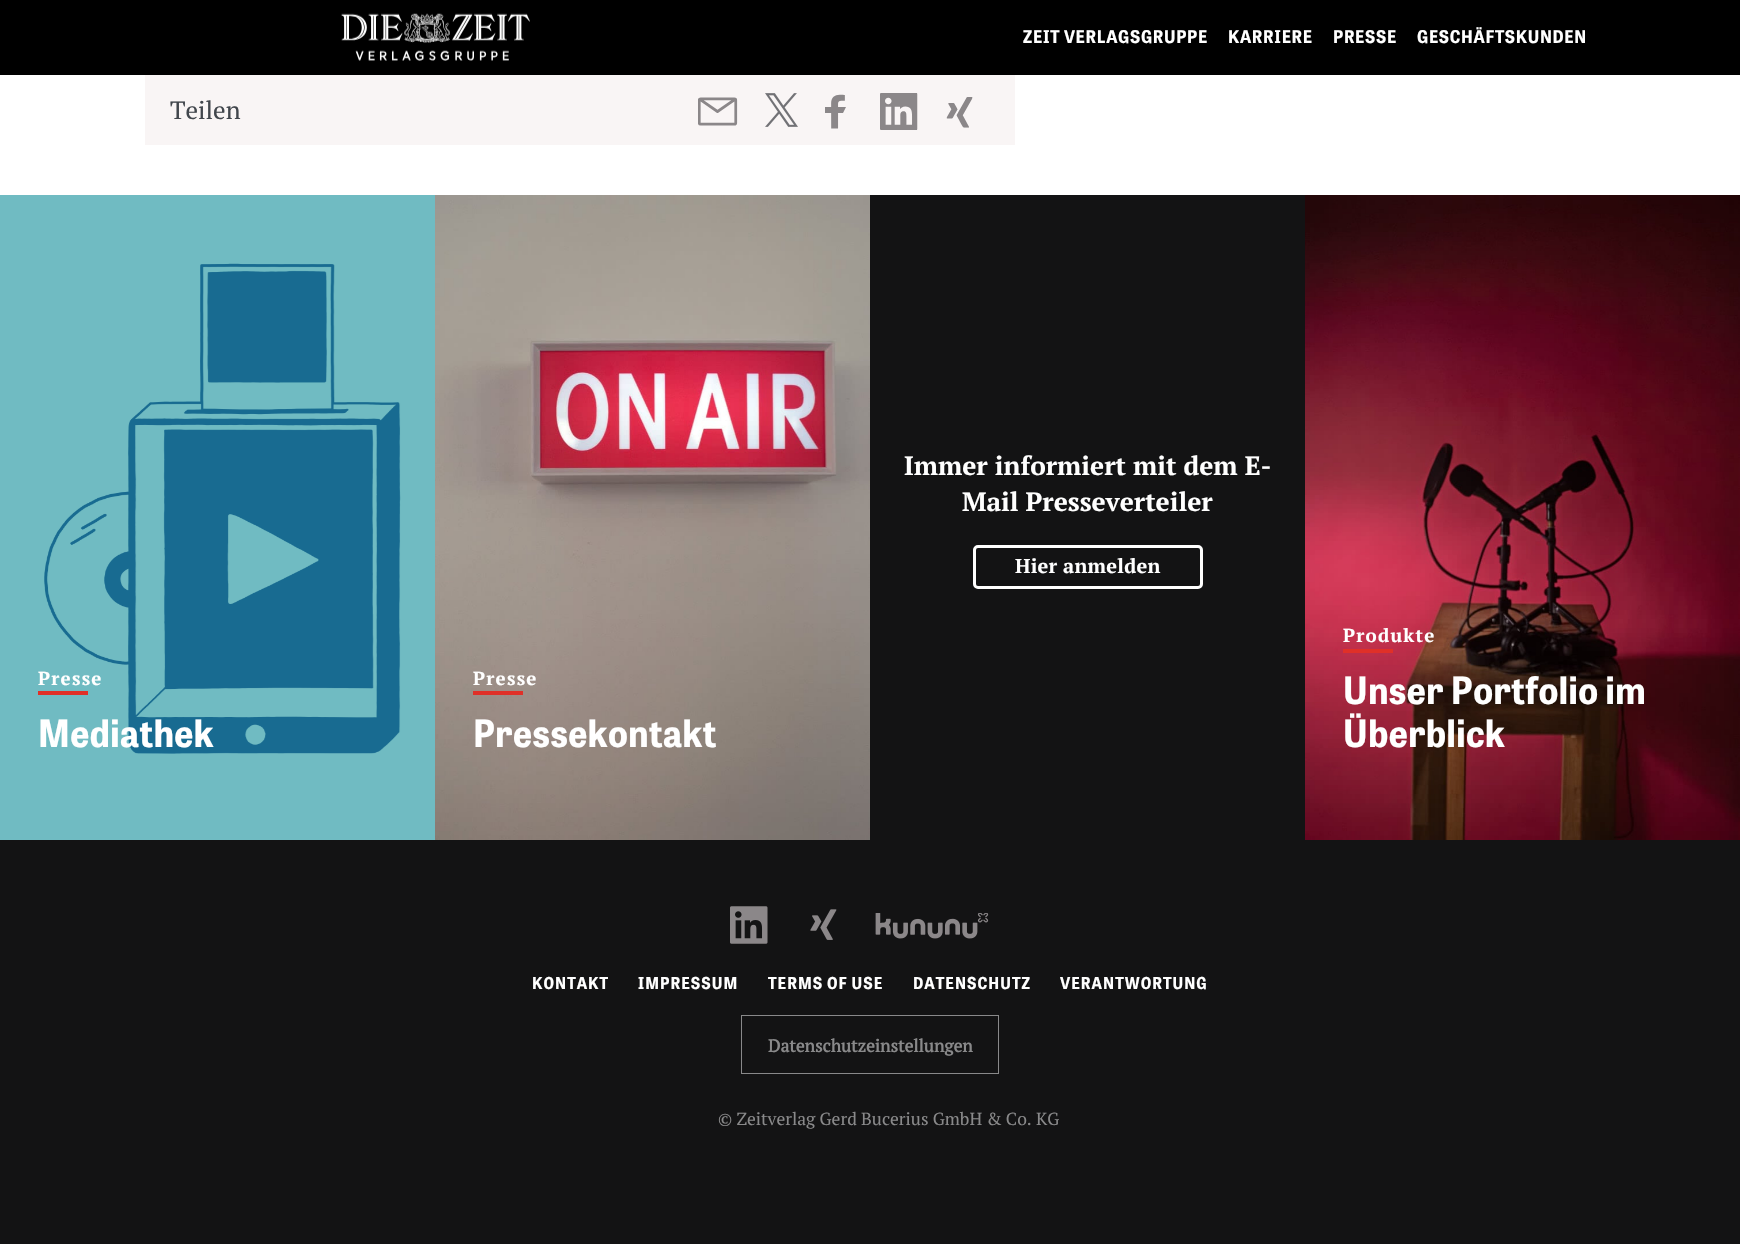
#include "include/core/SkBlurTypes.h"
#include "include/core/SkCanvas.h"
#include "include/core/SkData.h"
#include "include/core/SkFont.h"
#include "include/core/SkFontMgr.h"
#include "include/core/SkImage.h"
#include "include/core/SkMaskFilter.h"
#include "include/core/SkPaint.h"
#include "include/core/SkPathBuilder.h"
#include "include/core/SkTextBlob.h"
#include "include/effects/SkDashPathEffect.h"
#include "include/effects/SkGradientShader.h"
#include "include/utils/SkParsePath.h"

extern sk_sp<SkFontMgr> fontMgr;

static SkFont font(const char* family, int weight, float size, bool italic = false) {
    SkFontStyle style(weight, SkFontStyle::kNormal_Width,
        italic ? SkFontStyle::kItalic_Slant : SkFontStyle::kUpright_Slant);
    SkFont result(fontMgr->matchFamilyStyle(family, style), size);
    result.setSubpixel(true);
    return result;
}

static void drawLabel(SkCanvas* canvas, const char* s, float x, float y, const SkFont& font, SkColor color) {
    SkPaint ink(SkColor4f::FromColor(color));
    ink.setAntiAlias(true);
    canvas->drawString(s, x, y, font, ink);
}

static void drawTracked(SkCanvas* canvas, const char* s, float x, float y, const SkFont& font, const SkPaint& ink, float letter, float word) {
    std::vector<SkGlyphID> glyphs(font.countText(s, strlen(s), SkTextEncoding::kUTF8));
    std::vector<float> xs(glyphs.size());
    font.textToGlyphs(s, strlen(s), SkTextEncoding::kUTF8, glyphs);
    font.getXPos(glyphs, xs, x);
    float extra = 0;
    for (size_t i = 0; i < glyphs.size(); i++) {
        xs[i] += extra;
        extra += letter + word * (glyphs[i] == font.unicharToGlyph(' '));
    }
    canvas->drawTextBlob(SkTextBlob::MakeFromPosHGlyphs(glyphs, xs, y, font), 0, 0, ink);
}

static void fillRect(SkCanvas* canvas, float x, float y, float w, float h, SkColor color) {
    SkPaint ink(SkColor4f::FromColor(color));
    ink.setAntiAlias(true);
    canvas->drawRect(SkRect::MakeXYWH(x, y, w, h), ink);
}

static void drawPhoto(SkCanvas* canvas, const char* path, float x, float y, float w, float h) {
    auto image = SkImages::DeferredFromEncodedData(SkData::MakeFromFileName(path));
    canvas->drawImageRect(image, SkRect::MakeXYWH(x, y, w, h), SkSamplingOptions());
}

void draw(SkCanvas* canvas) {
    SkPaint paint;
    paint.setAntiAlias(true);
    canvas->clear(0xFFFFFFFF);
    fillRect(canvas, 0, 0, 1740, 75, 0xFF000000);
    drawPhoto(canvas, "assets/img1.png", 341, 13, 189, 48);
    SkFont font1 = font("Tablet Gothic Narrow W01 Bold", 700, 17.5f);
    paint.setColor(0xFFFFFFFF);
    drawTracked(canvas, "ZEIT VERLAGSGRUPPE", 1023, 43, font1, paint, 0.7f, 0);
    drawTracked(canvas, "KARRIERE", 1228, 43, font1, paint, 0.7f, 0);
    drawTracked(canvas, "PRESSE", 1333, 43, font1, paint, 0.7f, 0);
    drawTracked(canvas, "GESCHÄFTSKUNDEN", 1417, 43, font1, paint, 0.7f, 0);
    fillRect(canvas, 145, 75, 870, 70, 0xFFF9F5F5);
    SkFont font2 = font("PT Serif", 400, 25);
    drawLabel(canvas, "Teilen", 170, 119, font2, 0xFF41464C);
    drawPhoto(canvas, "assets/img2.png", 698, 97, 40, 29);
    drawPhoto(canvas, "assets/img3.png", 765, 93, 33, 34);
    drawPhoto(canvas, "assets/img4.png", 825, 94, 21, 35);
    drawPhoto(canvas, "assets/img5.png", 880, 93, 38, 37);
    drawPhoto(canvas, "assets/img6.png", 946, 97, 27, 31);
    fillRect(canvas, 870, 195, 435, 645, 0xFF131314);
    SkFont font3 = font("PT Serif", 700, 26.25f);
    drawLabel(canvas, "Immer informiert mit dem E-", 904, 475, font3, 0xFFFFFFFF);
    drawLabel(canvas, "Mail Presseverteiler", 962, 511, font3, 0xFFFFFFFF);
    paint.setStroke(true);
    paint.setStrokeWidth(3);
    canvas->drawRoundRect(SkRect::MakeXYWH(974.5f, 546.5f, 227, 41), 3.5f, 3.5f, paint);
    SkFont font4 = font("PT Serif", 700, 20);
    paint.setStroke(false);
    drawTracked(canvas, "Hier anmelden", 1015, 573, font4, paint, 0.25f, 0);
    drawPhoto(canvas, "assets/img7.png", 0, 195, 435, 645);
    SkFont font5 = font("PT Serif", 700, 18.75f);
    drawTracked(canvas, "Presse", 38, 685, font5, paint, 1.25f, 0);
    fillRect(canvas, 38, 691, 50, 4, 0xFFE03028);
    SkFont font6 = font("Tablet Gothic Narrow W01 Bold", 700, 37.5f);
    drawTracked(canvas, "Mediathek", 38, 747, font6, paint, 0.5f, 0);
    drawPhoto(canvas, "assets/img8.png", 435, 195, 435, 645);
    drawTracked(canvas, "Presse", 473, 685, font5, paint, 1.25f, 0);
    fillRect(canvas, 473, 691, 50, 4, 0xFFE03028);
    drawTracked(canvas, "Pressekontakt", 473, 747, font6, paint, 0.5f, 0);
    drawPhoto(canvas, "assets/img9.png", 1305, 195, 435, 645);
    drawTracked(canvas, "Produkte", 1343, 642, font5, paint, 1.25f, 0);
    fillRect(canvas, 1343, 649, 50, 4, 0xFFE03028);
    drawTracked(canvas, "Unser Portfolio im", 1343, 704, font6, paint, 0.5f, 0);
    drawTracked(canvas, "Überblick", 1343, 747, font6, paint, 0.5f, 0);
    fillRect(canvas, 0, 840, 1740, 404, 0xFF131314);
    drawPhoto(canvas, "assets/img10.png", 730, 906, 38, 38);
    drawPhoto(canvas, "assets/img11.png", 810, 909, 27, 31);
    drawPhoto(canvas, "assets/img12.png", 875, 913, 114, 26);
    SkFont font7 = font("Tablet Gothic Narrow W01 Bold", 700, 16.25f);
    drawTracked(canvas, "KONTAKT", 532, 989, font7, paint, 1, 0);
    drawTracked(canvas, "IMPRESSUM", 638, 989, font7, paint, 1, 0);
    drawTracked(canvas, "TERMS OF USE", 768, 989, font7, paint, 1, 0);
    drawTracked(canvas, "DATENSCHUTZ", 913, 989, font7, paint, 1, 0);
    drawTracked(canvas, "VERANTWORTUNG", 1060, 989, font7, paint, 1, 0);
    paint.setStroke(true);
    paint.setStrokeWidth(1);
    paint.setColor(0xFF89898A);
    canvas->drawRect(SkRect::MakeXYWH(741.5f, 1015.5f, 257, 58), paint);
    SkFont font8 = font("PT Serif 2", 700, 17.5f);
    drawLabel(canvas, "Datenschutzeinstellungen", 768, 1052, font8, 0xFF89898A);
    SkFont font9 = font("PT Serif", 400, 17.5f);
    drawLabel(canvas, "© Zeitverlag Gerd Bucerius GmbH & Co. KG", 718, 1125, font9, 0xFF89898A);
}
